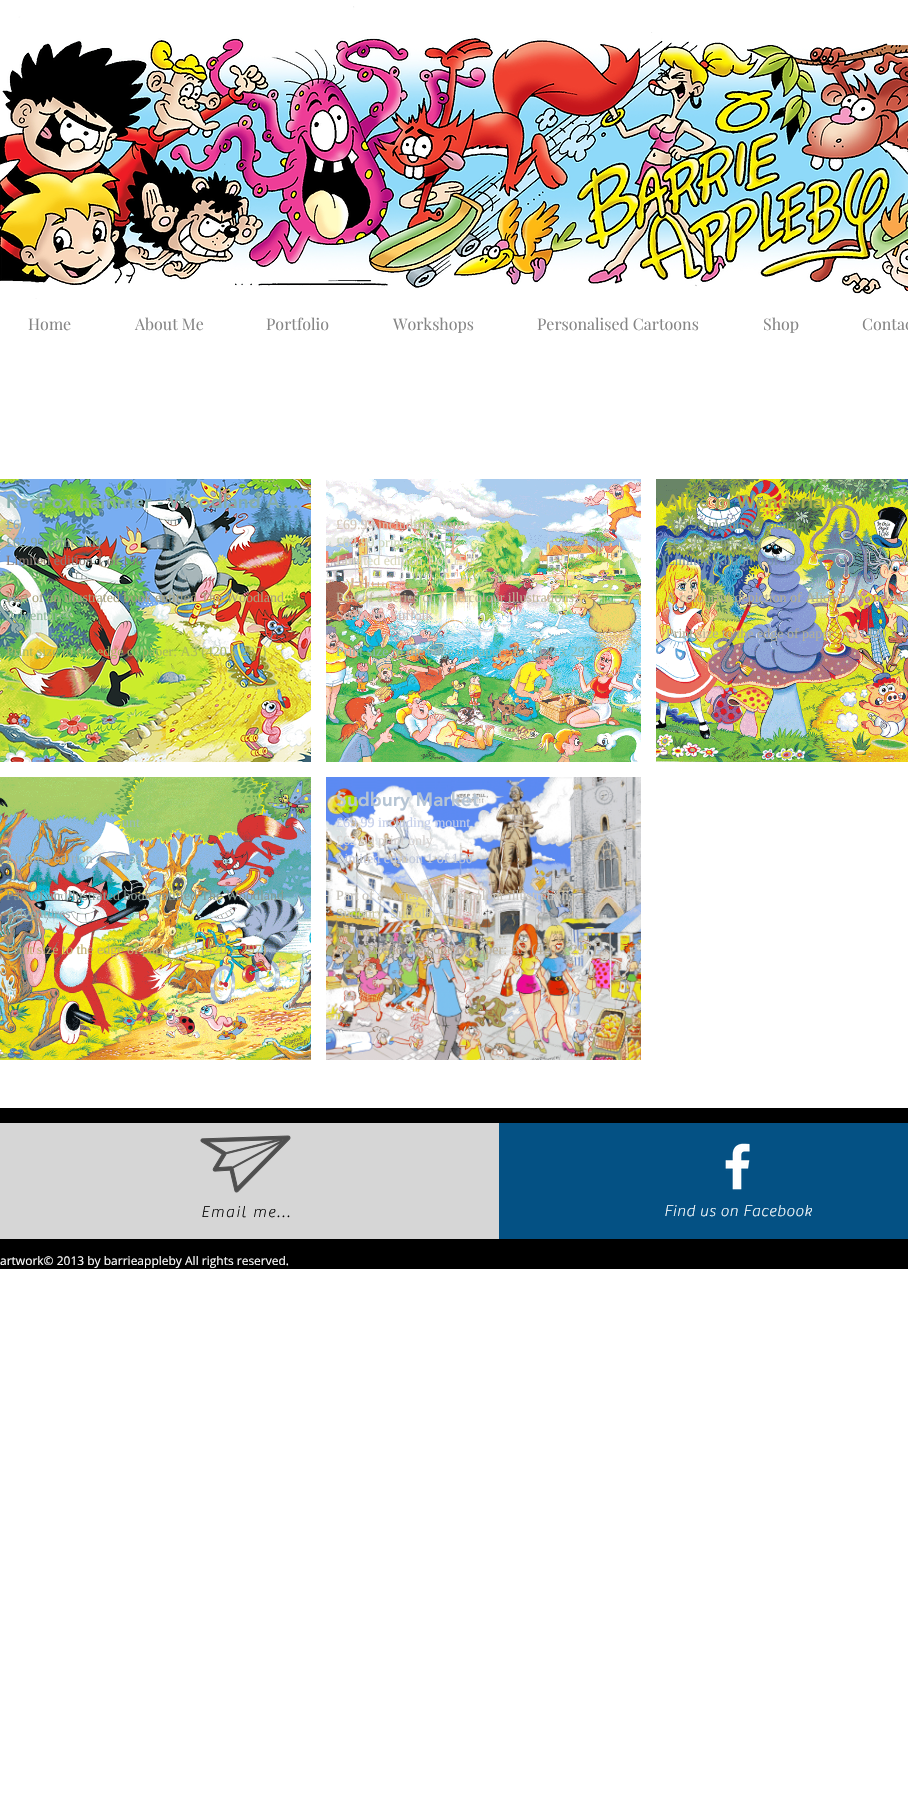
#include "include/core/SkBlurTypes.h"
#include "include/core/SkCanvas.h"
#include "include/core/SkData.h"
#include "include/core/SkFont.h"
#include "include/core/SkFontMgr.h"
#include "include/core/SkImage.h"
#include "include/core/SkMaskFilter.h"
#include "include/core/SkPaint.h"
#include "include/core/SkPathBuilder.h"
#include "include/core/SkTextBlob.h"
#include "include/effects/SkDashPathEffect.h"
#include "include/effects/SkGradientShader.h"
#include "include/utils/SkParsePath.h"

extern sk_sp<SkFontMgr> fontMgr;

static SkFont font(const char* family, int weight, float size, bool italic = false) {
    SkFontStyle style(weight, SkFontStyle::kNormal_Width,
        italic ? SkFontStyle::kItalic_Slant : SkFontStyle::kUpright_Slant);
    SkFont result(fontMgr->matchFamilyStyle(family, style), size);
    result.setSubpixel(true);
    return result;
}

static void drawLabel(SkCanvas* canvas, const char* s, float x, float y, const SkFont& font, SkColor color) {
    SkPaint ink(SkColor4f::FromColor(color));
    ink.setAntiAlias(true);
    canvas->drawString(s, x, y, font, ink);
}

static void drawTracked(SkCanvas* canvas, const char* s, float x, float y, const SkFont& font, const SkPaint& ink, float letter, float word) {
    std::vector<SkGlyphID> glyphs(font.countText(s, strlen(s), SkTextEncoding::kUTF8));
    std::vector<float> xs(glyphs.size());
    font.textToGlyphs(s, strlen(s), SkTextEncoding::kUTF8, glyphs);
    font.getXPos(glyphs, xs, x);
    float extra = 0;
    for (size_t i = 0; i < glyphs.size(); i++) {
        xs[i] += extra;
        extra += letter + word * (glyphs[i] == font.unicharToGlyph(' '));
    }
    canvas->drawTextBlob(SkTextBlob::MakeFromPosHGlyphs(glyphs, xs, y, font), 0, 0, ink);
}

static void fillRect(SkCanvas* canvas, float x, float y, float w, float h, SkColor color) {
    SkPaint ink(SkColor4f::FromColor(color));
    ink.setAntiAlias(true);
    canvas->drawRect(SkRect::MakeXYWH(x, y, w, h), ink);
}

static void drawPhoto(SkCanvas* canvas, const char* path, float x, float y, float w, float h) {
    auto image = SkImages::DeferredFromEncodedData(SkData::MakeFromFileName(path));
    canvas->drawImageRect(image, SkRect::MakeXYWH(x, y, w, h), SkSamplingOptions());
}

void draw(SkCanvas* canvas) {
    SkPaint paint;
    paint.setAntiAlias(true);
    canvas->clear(0xFFFFFFFF);
    drawPhoto(canvas, "assets/img1.png", 0, 6, 908, 293);
    SkFont font1 = font("Playfair Display", 400, 16);
    drawLabel(canvas, "Home", 28, 330, font1, 0xFF858585);
    drawLabel(canvas, "About Me", 135, 330, font1, 0xFF858585);
    drawLabel(canvas, "Portfolio", 266, 330, font1, 0xFF858585);
    drawLabel(canvas, "Workshops", 393, 330, font1, 0xFF858585);
    drawLabel(canvas, "Personalised Cartoons", 537, 330, font1, 0xFF858585);
    drawLabel(canvas, "Shop", 763, 330, font1, 0xFF858585);
    drawLabel(canvas, "Contac", 862, 330, font1, 0xFF858585);
    drawPhoto(canvas, "assets/img2.png", 0, 479, 311, 283);
    SkFont font2 = font("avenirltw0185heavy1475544", 900, 19);
    drawLabel(canvas, "RedFox hammer - Woodland A…", 6, 508, font2, 0xFF84AEAA);
    SkFont font3 = font("Liberation Serif", 400, 14);
    drawLabel(canvas, "£6", 6, 529, font3, 0xFF7FADD2);
    drawLabel(canvas, "£62.99 print only", 6, 547, font3, 0xFF84A598);
    drawLabel(canvas, "Limited edition 1 of 150", 6, 565, font3, 0xFF8B7C74);
    drawLabel(canvas, "Part of an illustrated book entitled The Woodland", 6, 602, font3, 0xFFAAA47E);
    drawLabel(canvas, "Adventures", 6, 620, font3, 0xFF91BB9A);
    drawLabel(canvas, "Print size to the edge of paper: A3 (420 x 297)", 6, 656, font3, 0xFFAAB960);
    drawPhoto(canvas, "assets/img3.png", 326, 479, 315, 283);
    drawLabel(canvas, "£69.99 including mount", 336, 529, font3, 0xFFD4C8B9);
    drawLabel(canvas, "£62.99 print only", 336, 547, font3, 0xFFCDD6BB);
    drawLabel(canvas, "Limited edition 1 of 150", 336, 565, font3, 0xFFD9D8BC);
    drawLabel(canvas, "Part of a series of watercolour illustrations,", 336, 602, font3, 0xFFC1B799);
    drawLabel(canvas, "Sudbury, Suffolk", 336, 620, font3, 0xFFD1BBB3);
    drawLabel(canvas, "Print size to the edge of paper: A3 (420 x 297)", 336, 656, font3, 0xFF89BBB2);
    drawPhoto(canvas, "assets/img4.png", 656, 479, 252, 283);
    drawLabel(canvas, "Alice in Wonderland", 666, 508, font2, 0xFFABAF51);
    drawLabel(canvas, "£69.99 including mount", 666, 529, font3, 0xFF89A08C);
    drawLabel(canvas, "£62.99 print only", 666, 547, font3, 0xFF8FAB8A);
    drawLabel(canvas, "Limited edition 1 of 150", 666, 565, font3, 0xFF7997A6);
    drawLabel(canvas, "A colourful depiction of Alice in Wonderla", 666, 602, font3, 0xFFB5AF8F);
    drawLabel(canvas, "Print size to the edge of paper: A3 (420 x 2", 666, 638, font3, 0xFFB1B098);
    drawPhoto(canvas, "assets/img5.png", 0, 777, 311, 283);
    drawLabel(canvas, "-", 120, 806, font2, 0xFFA0C868);
    drawLabel(canvas, "dve…", 242, 806, font2, 0xFFA0C868);
    drawLabel(canvas, "unt", 122, 827, font3, 0xFF99BDB5);
    drawLabel(canvas, "Limited edition 1 of 150", 6, 863, font3, 0xFFA2B2B3);
    drawLabel(canvas, "Part of an illustrated book entitled The Woodland", 6, 900, font3, 0xFF899C95);
    drawLabel(canvas, "Adventures", 6, 918, font3, 0xFF97B0B2);
    drawLabel(canvas, "Print size to the edge of paper: A3 (420 x 297)", 6, 954, font3, 0xFFC2B171);
    drawPhoto(canvas, "assets/img6.png", 326, 777, 315, 283);
    drawLabel(canvas, "Sudbury Market", 336, 806, font2, 0xFFB6C5D4);
    drawLabel(canvas, "£69.99 including mount", 336, 827, font3, 0xFFC4CEEA);
    drawLabel(canvas, "£62.99 print only", 336, 845, font3, 0xFFD6D2D0);
    drawLabel(canvas, "Limited edition 1 of 150", 336, 863, font3, 0xFFC1C9DD);
    drawLabel(canvas, "Part of a series of watercolour illustrations,", 336, 900, font3, 0xFFC7C3BB);
    drawLabel(canvas, "Sudbury, Suffolk", 336, 918, font3, 0xFFCDC89F);
    drawLabel(canvas, "Print size to the edge of paper: A3 (420 x 297)", 336, 954, font3, 0xFFBBAE96);
    fillRect(canvas, 0, 1108, 908, 161, 0xFF000000);
    fillRect(canvas, 0, 1123, 499, 116, 0xFFD6D6D6);
    drawPhoto(canvas, "assets/img7.png", 200, 1135, 91, 58);
    SkFont font4 = font("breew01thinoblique", 100, 16);
    paint.setColor(0xFF000000);
    drawTracked(canvas, "Email me...", 201, 1217, font4, paint, 1.75f, 0);
    fillRect(canvas, 499, 1123, 409, 116, 0xFF045184);
    drawPhoto(canvas, "assets/img8.png", 725, 1143, 25, 47);
    paint.setColor(0xFFFFFFFF);
    drawTracked(canvas, "Find us on Facebook", 664, 1216, font4, paint, 0.75f, 0);
    SkFont font5 = font("Open Sans", 400, 12);
    drawLabel(canvas, "artwork© 2013 by barrieappleby All rights reserved.", 0, 1265, font5, 0xFFFFFFFF);
}
